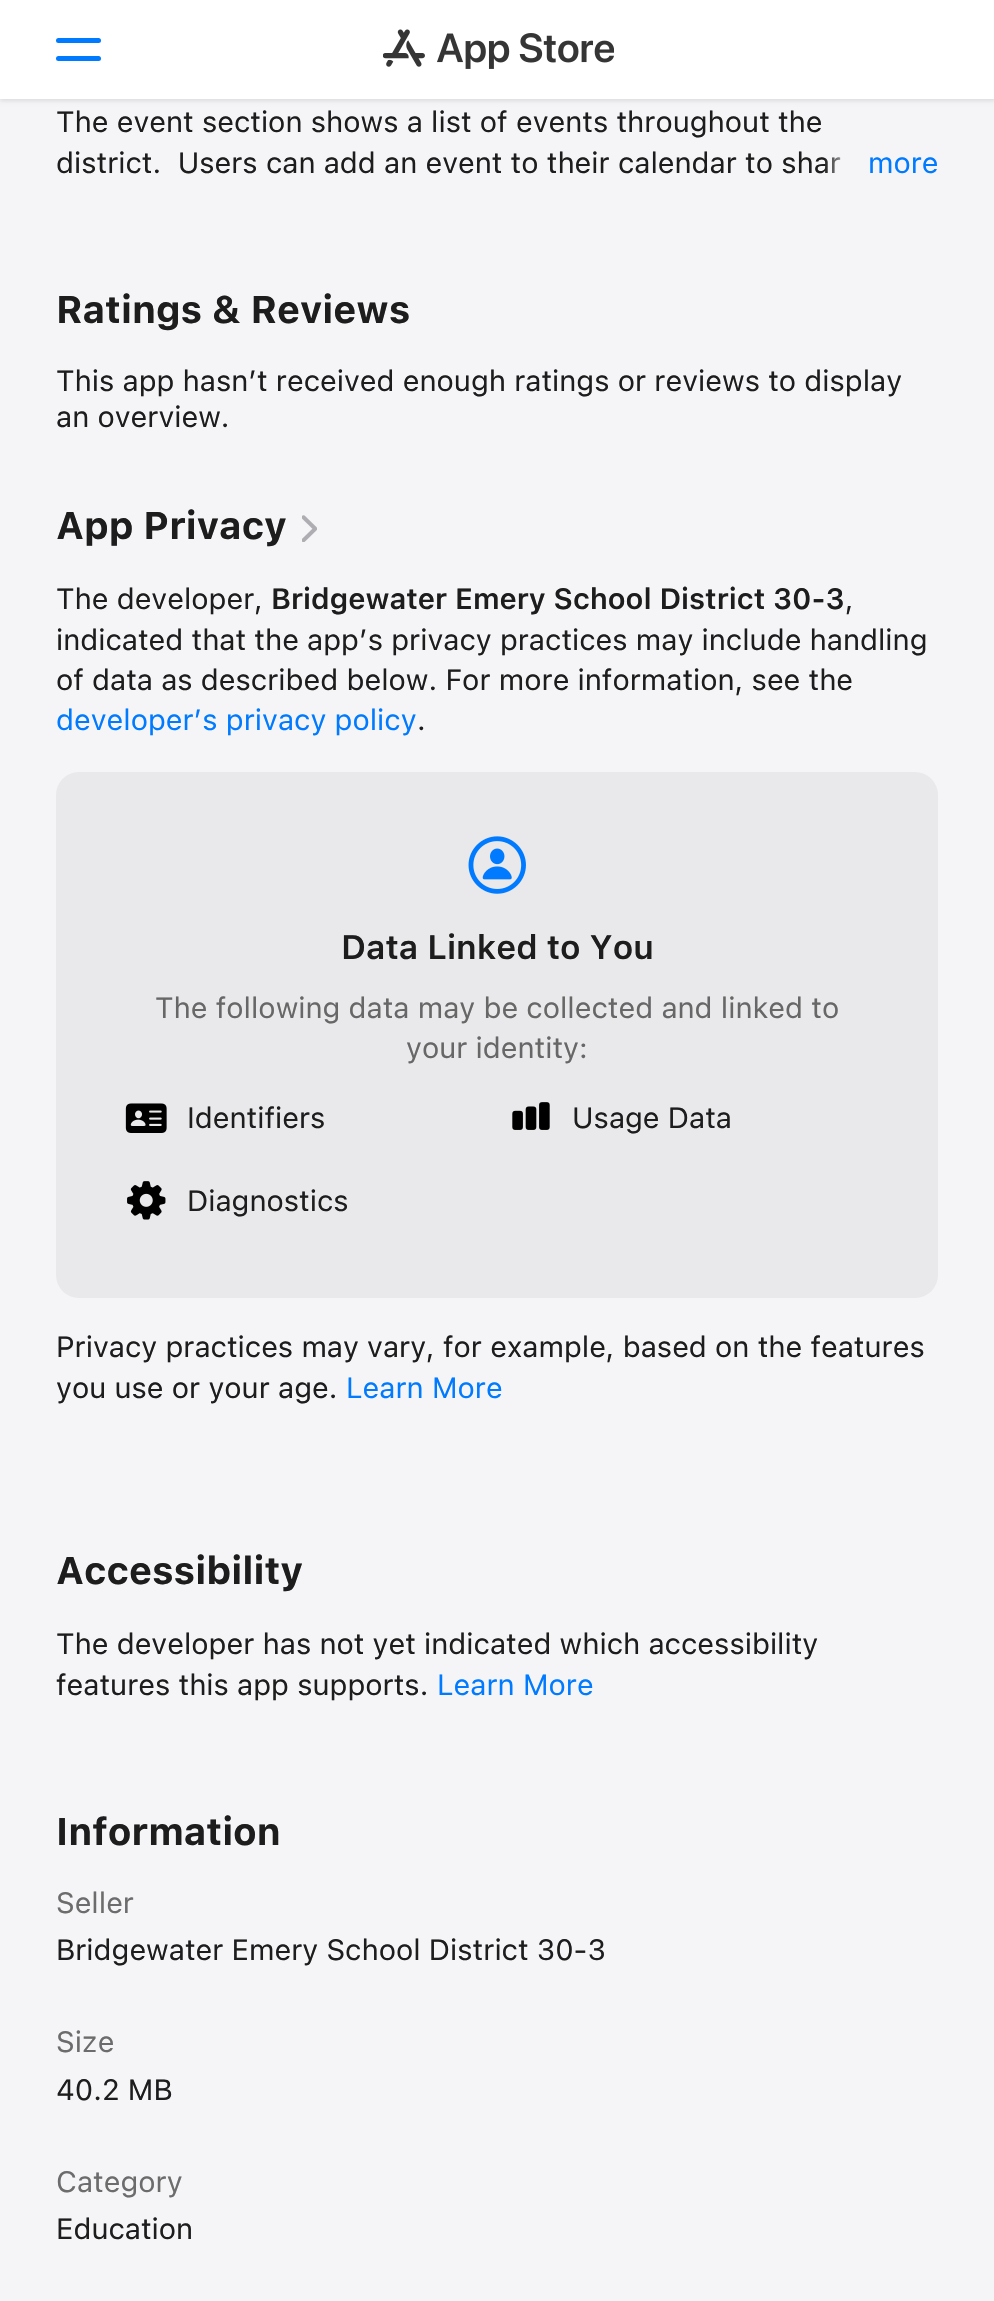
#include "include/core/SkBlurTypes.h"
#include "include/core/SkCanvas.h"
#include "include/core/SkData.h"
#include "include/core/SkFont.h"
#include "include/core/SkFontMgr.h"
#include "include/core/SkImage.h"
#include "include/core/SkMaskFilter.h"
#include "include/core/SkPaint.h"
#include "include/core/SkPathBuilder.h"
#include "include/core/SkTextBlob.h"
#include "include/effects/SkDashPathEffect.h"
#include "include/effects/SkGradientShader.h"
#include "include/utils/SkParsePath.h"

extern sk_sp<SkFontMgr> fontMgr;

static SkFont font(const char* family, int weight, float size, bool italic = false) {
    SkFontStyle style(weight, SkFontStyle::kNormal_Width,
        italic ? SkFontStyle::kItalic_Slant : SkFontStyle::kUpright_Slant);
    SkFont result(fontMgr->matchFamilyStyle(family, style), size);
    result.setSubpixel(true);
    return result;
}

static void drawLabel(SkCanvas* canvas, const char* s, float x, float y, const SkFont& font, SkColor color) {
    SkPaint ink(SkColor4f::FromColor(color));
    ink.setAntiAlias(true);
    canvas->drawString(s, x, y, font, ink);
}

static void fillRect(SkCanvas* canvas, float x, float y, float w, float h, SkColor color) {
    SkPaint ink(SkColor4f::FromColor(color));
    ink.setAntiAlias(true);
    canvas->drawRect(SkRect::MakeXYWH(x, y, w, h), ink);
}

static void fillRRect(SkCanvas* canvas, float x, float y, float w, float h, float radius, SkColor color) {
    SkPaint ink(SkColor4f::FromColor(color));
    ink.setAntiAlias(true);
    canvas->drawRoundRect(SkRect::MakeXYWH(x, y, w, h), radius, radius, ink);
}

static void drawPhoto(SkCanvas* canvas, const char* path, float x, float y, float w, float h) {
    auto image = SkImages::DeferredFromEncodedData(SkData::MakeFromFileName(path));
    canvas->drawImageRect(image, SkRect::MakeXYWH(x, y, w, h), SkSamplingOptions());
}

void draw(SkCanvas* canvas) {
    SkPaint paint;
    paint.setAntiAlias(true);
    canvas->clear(0xFFF5F5F7);
    paint.setColor(0x1A000000);
    paint.setMaskFilter(SkMaskFilter::MakeBlur(kNormal_SkBlurStyle, 2));
    canvas->drawRect(SkRect::MakeXYWH(0, 2, 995, 99), paint);
    paint.setMaskFilter(nullptr);
    fillRect(canvas, 0, 0, 994, 99, 0xFFFFFFFF);
    fillRRect(canvas, 56, 38, 45, 5, 2.5f, 0xFF007AFF);
    fillRRect(canvas, 56, 56, 45, 5, 2.5f, 0xFF007AFF);
    drawPhoto(canvas, "assets/img1.png", 383, 29, 231, 40);
    SkFont font1 = font("SF", 400, 29.25f);
    drawLabel(canvas, "The event section shows a list of events throughout the", 56, 132, font1, 0xFF1D1D1E);
    drawLabel(canvas, "district.  Users can add an event to their calendar to shar", 56, 173, font1, 0xFF1D1D1E);
    {
        const SkColor colors[] = {0xFFF5F5F7, 0x00F5F5F7};
        const float stops[] = {0.72f, 1};
        const SkPoint ends[] = {{938, 164}, {824, 164}};
        paint.setShader(SkGradientShader::MakeLinear(ends, colors, stops, 2, SkTileMode::kClamp));
        paint.setAlpha(255);
    }
    canvas->drawRect(SkRect::MakeXYWH(825, 157, 16, 16), paint);
    drawLabel(canvas, "more", 868, 173, font1, 0xFF007AFF);
    SkFont font2 = font("SF", 700, 38.25f);
    drawLabel(canvas, "Ratings & Reviews", 56, 323, font2, 0xFF1D1D1E);
    drawLabel(canvas, "This app hasn’t received enough ratings or reviews to display", 56, 391, font1, 0xFF1D1D1E);
    drawLabel(canvas, "an overview.", 56, 427, font1, 0xFF1D1D1E);
    drawLabel(canvas, "App Privacy", 56, 539, font2, 0xFF1D1D1E);
    drawPhoto(canvas, "assets/img2.png", 302, 515, 15, 27);
    drawLabel(canvas, "The developer,", 56, 609, font1, 0xFF1D1D1E);
    SkFont font3 = font("SF", 600, 29.25f);
    drawLabel(canvas, "Bridgewater Emery School District 30-3", 271, 609, font3, 0xFF1D1D1E);
    drawLabel(canvas, ",", 845, 609, font1, 0xFF1D1D1E);
    drawLabel(canvas, "indicated that the app’s privacy practices may include handling", 56, 650, font1, 0xFF1D1D1E);
    drawLabel(canvas, "of data as described below. For more information, see the", 56, 690, font1, 0xFF1D1D1E);
    drawLabel(canvas, "developer’s privacy policy", 56, 730, font1, 0xFF007AFF);
    drawLabel(canvas, ".", 417, 730, font1, 0xFF1D1D1E);
    fillRRect(canvas, 56, 772, 882, 526, 23, 0xFFE9E9EB);
    drawPhoto(canvas, "assets/img3.png", 468, 836, 58, 58);
    SkFont font4 = font("SF", 600, 33.75f);
    drawLabel(canvas, "Data Linked to You", 341, 959, font4, 0xFF1D1D1E);
    drawLabel(canvas, "The following data may be collected and linked to", 155, 1018, font1, 0xFF676767);
    drawLabel(canvas, "your identity:", 406, 1058, font1, 0xFF676767);
    drawPhoto(canvas, "assets/img4.png", 125, 1103, 42, 30);
    drawLabel(canvas, "Identifiers", 187, 1128, font1, 0xFF1D1D1E);
    drawPhoto(canvas, "assets/img5.png", 512, 1102, 38, 28);
    drawLabel(canvas, "Usage Data", 572, 1128, font1, 0xFF1D1D1E);
    drawPhoto(canvas, "assets/img6.png", 127, 1181, 39, 39);
    drawLabel(canvas, "Diagnostics", 187, 1211, font1, 0xFF1D1D1E);
    drawLabel(canvas, "Privacy practices may vary, for example, based on the features", 56, 1357, font1, 0xFF1D1D1E);
    drawLabel(canvas, "you use or your age.", 56, 1398, font1, 0xFF1D1D1E);
    drawLabel(canvas, "Learn More", 346, 1398, font1, 0xFF007AFF);
    drawLabel(canvas, "Accessibility", 56, 1584, font2, 0xFF1D1D1E);
    drawLabel(canvas, "The developer has not yet indicated which accessibility", 56, 1654, font1, 0xFF1D1D1E);
    drawLabel(canvas, "features this app supports.", 56, 1695, font1, 0xFF1D1D1E);
    drawLabel(canvas, "Learn More", 437, 1695, font1, 0xFF007AFF);
    drawLabel(canvas, "Information", 56, 1845, font2, 0xFF1D1D1E);
    drawLabel(canvas, "Seller", 56, 1913, font1, 0xFF6C6C6D);
    drawLabel(canvas, "Bridgewater Emery School District 30-3", 56, 1960, font1, 0xFF1D1D1E);
    drawLabel(canvas, "Size", 56, 2052, font1, 0xFF6C6C6D);
    drawLabel(canvas, "40.2 MB", 56, 2100, font1, 0xFF1D1D1E);
    drawLabel(canvas, "Category", 56, 2192, font1, 0xFF6C6C6D);
    drawLabel(canvas, "Education", 56, 2239, font1, 0xFF1D1D1E);
}
